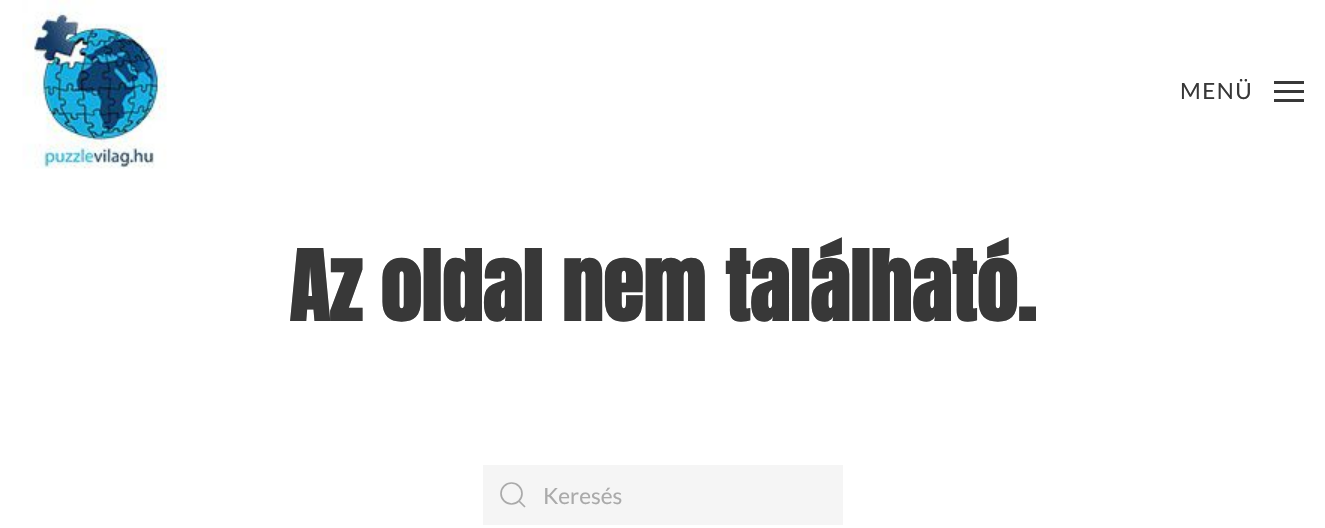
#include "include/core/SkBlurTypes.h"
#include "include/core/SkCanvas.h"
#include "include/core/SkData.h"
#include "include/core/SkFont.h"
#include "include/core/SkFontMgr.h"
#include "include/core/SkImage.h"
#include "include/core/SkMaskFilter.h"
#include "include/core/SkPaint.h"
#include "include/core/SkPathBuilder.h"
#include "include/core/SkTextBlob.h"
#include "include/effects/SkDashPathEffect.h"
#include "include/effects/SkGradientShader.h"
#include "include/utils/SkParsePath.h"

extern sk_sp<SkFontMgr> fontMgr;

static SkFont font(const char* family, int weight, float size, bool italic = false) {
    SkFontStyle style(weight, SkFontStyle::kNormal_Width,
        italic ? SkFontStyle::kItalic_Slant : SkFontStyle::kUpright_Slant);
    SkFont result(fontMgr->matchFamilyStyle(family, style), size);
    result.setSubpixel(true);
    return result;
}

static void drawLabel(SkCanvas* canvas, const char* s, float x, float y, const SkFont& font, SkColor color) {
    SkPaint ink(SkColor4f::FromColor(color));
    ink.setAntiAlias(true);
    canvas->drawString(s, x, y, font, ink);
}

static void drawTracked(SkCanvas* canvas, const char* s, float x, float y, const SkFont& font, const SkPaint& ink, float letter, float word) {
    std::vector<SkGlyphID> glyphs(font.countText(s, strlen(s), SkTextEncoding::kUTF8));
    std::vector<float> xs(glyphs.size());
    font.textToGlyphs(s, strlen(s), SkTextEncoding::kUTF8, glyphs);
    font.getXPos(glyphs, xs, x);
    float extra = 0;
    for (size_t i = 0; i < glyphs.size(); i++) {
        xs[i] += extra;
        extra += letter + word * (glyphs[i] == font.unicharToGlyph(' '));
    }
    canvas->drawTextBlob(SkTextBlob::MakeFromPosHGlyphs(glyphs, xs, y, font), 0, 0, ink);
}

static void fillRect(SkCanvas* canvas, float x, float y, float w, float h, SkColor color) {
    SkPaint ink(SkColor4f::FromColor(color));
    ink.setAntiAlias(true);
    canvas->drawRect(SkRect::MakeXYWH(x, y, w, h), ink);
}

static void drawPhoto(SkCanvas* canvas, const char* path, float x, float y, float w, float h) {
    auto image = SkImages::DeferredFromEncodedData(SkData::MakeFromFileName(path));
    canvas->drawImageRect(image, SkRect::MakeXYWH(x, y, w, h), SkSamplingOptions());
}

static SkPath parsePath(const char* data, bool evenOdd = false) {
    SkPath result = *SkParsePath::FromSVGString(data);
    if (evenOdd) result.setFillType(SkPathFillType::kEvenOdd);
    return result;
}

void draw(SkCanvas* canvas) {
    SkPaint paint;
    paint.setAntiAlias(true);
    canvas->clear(0xFFFFFFFF);
    drawPhoto(canvas, "assets/img1.png", 22, 0, 145, 169);
    SkFont font1 = font("Lato", 400, 22.5f);
    paint.setColor(0xFF383838);
    drawTracked(canvas, "MENÜ", 1180, 99, font1, paint, 1.5f, 0);
    fillRect(canvas, 1274, 81, 30, 3, 0xFF383838);
    fillRect(canvas, 1274, 90, 30, 3, 0xFF383838);
    fillRect(canvas, 1274, 99, 30, 3, 0xFF383838);
    SkFont font2 = font("Anton", 700, 82.25f);
    drawLabel(canvas, "Az oldal nem található.", 289, 321, font2, 0xFF383838);
    fillRect(canvas, 483, 465, 360, 60, 0xFFF5F5F5);
    paint.setStroke(true);
    paint.setStrokeWidth(1.7f);
    paint.setColor(0xFFAAAAAA);
    canvas->drawCircle(511.5f, 493.5f, 10.5f, paint);
    canvas->drawPath(parsePath("M519 501L525 507Z"), paint);
    drawLabel(canvas, "Keresés", 543, 504, font1, 0xFFAAAAAA);
}
